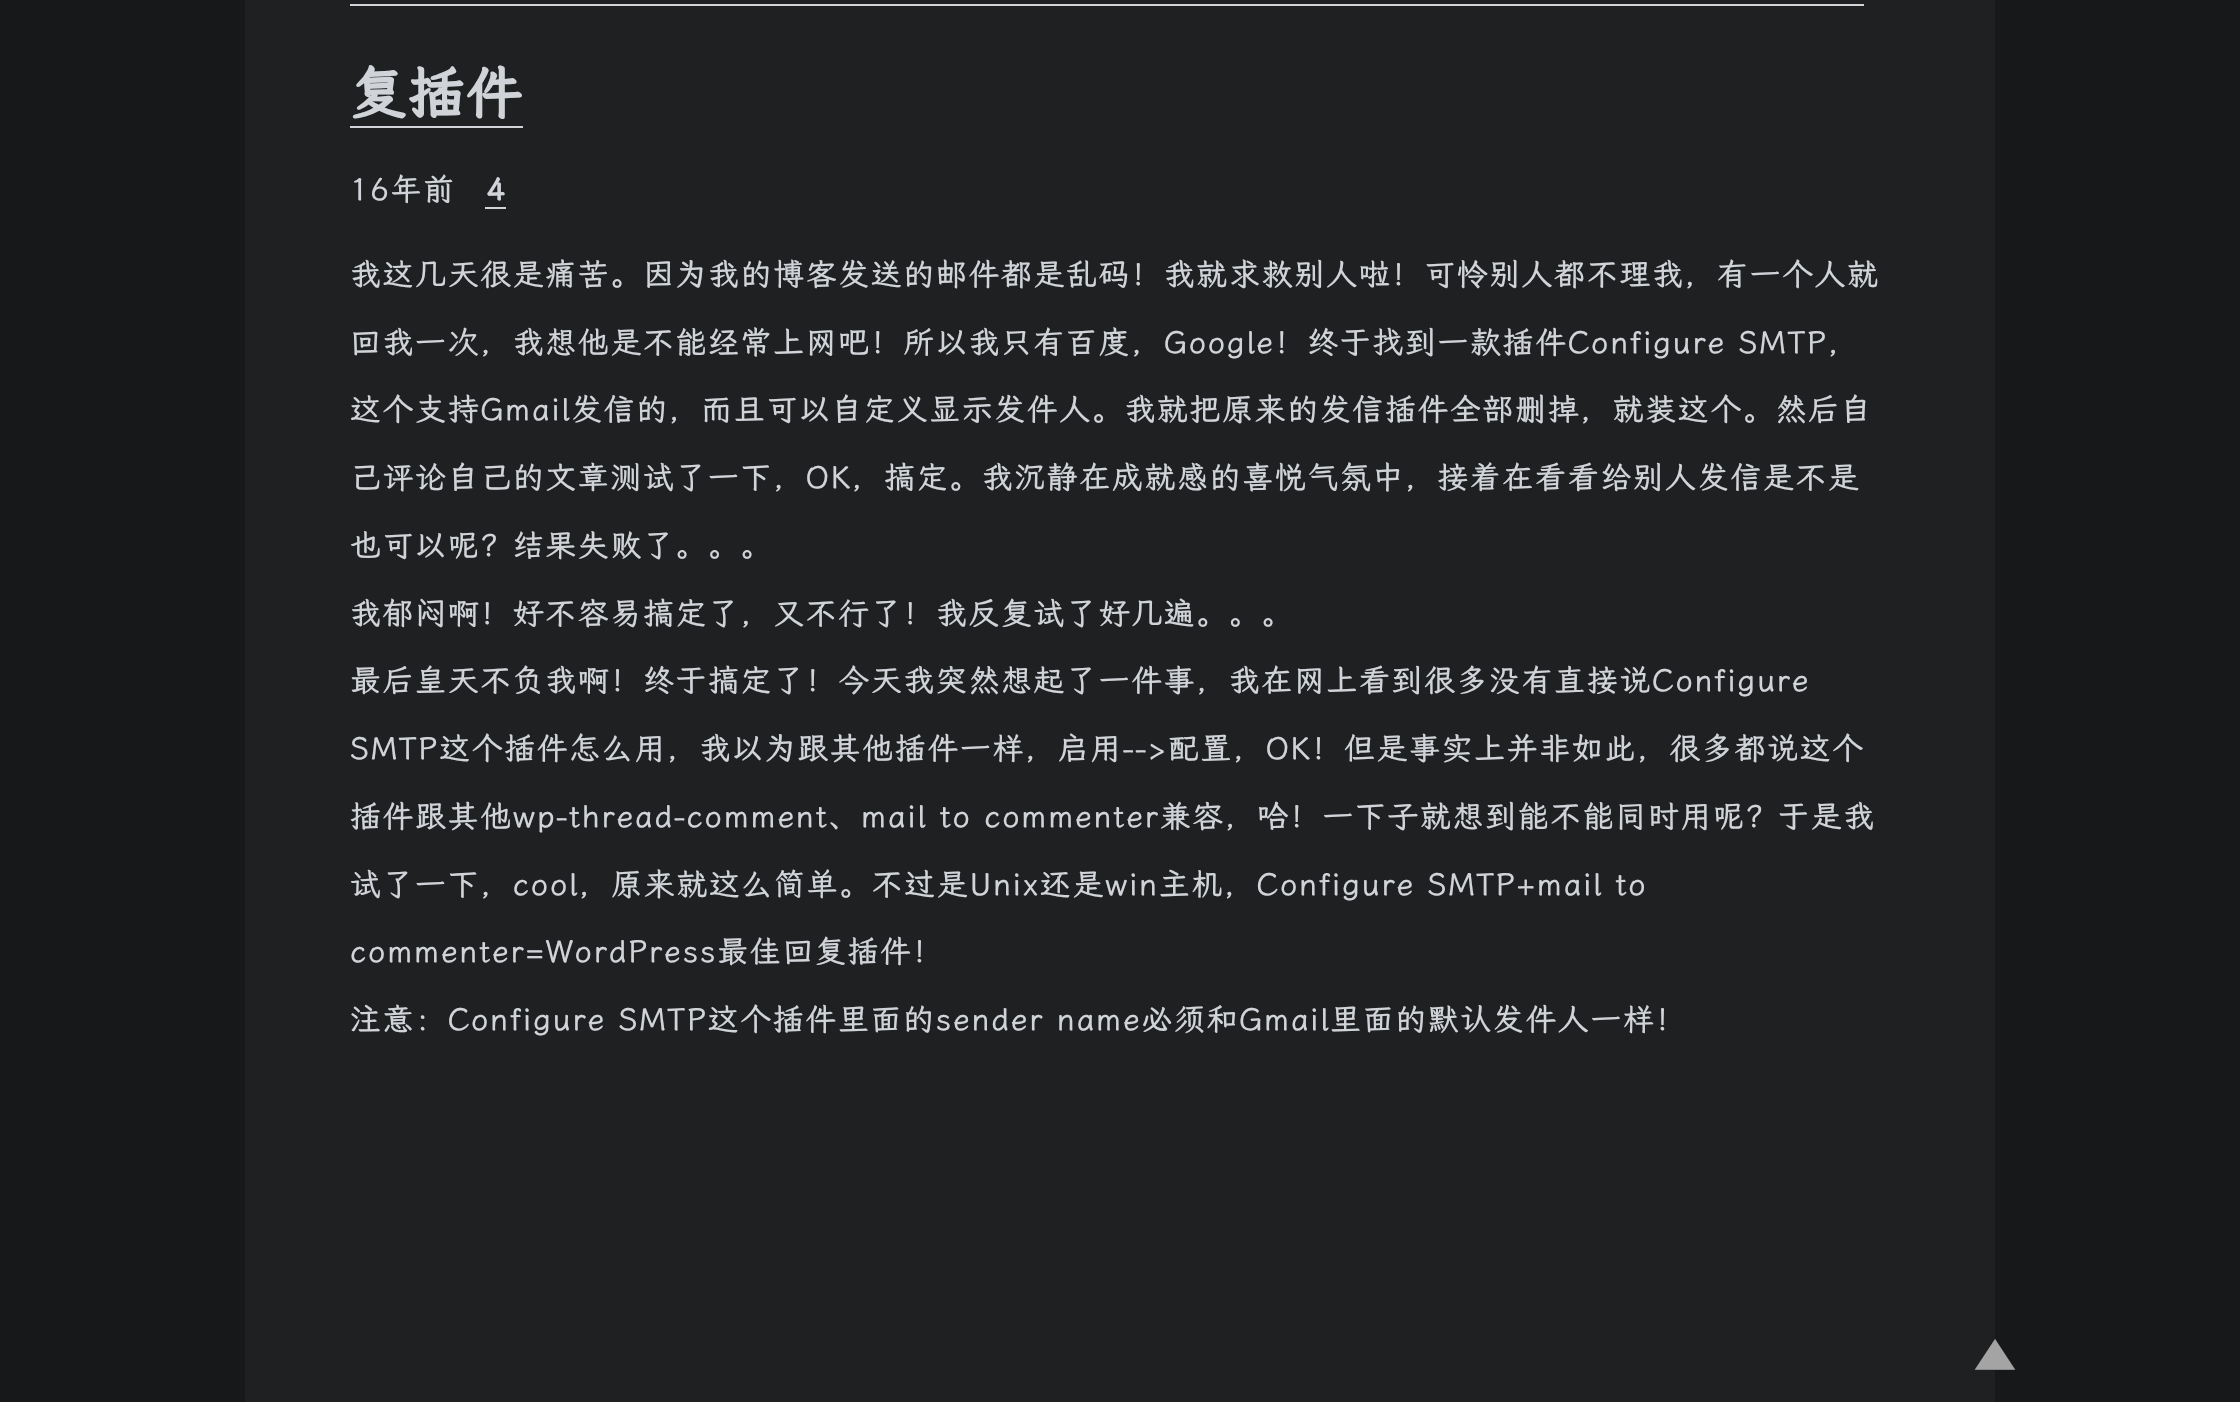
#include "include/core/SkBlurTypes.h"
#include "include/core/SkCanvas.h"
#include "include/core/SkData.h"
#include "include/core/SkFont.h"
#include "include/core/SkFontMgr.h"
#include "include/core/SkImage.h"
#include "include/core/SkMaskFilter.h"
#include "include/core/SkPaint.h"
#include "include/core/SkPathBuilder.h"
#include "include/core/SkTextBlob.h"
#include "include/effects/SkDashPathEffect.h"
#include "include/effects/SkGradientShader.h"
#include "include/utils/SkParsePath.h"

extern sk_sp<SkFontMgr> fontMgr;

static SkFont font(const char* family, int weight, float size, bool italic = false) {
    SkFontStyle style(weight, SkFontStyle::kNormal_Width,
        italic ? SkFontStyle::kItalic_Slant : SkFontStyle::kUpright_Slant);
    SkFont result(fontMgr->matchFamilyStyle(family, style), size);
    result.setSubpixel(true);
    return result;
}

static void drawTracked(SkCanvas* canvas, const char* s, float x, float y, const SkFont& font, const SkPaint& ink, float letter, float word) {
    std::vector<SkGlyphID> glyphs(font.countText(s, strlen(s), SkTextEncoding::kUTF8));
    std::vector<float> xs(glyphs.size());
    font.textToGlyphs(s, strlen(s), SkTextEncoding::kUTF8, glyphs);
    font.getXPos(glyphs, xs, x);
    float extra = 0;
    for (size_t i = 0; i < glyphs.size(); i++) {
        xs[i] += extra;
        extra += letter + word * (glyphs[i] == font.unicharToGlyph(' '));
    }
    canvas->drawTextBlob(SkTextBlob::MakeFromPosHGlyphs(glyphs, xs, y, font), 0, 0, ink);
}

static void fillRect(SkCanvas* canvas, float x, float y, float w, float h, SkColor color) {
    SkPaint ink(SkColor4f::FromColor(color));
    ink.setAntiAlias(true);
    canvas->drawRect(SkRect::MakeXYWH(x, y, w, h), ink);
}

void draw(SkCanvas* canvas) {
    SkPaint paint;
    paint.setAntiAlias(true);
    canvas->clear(0xFF17181A);
    fillRect(canvas, 245, 0, 1750, 1402, 0xFF1F2022);
    SkFont font1 = font("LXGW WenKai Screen", 700, 56);
    paint.setColor(0xFFD0D3D8);
    drawTracked(canvas, "复插件", 350, 113, font1, paint, 1.75f, 0);
    fillRect(canvas, 350, 4, 1514, 2, 0xFFD0D3D8);
    fillRect(canvas, 350, 126, 173, 2, 0xFFD0D3D8);
    SkFont font2 = font("LXGW WenKai Screen", 400, 30.8f);
    drawTracked(canvas, "16年前", 350, 200, font2, paint, 1.75f, 0);
    SkFont font3 = font("LXGW WenKai Screen", 700, 30.8f);
    drawTracked(canvas, "4", 486, 200, font3, paint, 1.75f, 0);
    fillRect(canvas, 485, 207, 21, 2, 0xFFD0D3D8);
    drawTracked(canvas, "我这几天很是痛苦。因为我的博客发送的邮件都是乱码！我就求救别人啦！可怜别人都不理我，有一个人就", 350, 285, font2, paint, 1.75f, 0);
    drawTracked(canvas, "回我一次，我想他是不能经常上网吧！所以我只有百度，Google！终于找到一款插件Configure SMTP，", 350, 353, font2, paint, 1.75f, 0);
    drawTracked(canvas, "这个支持Gmail发信的，而且可以自定义显示发件人。我就把原来的发信插件全部删掉，就装这个。然后自", 350, 420, font2, paint, 1.75f, 0);
    drawTracked(canvas, "己评论自己的文章测试了一下，OK，搞定。我沉静在成就感的喜悦气氛中，接着在看看给别人发信是不是", 350, 488, font2, paint, 1.75f, 0);
    drawTracked(canvas, "也可以呢？结果失败了。。。", 350, 556, font2, paint, 1.75f, 0);
    drawTracked(canvas, "我郁闷啊！好不容易搞定了，又不行了！我反复试了好几遍。。。", 350, 624, font2, paint, 1.75f, 0);
    drawTracked(canvas, "最后皇天不负我啊！终于搞定了！今天我突然想起了一件事，我在网上看到很多没有直接说Configure", 350, 691, font2, paint, 1.75f, 0);
    drawTracked(canvas, "SMTP这个插件怎么用，我以为跟其他插件一样，启用-->配置，OK！但是事实上并非如此，很多都说这个", 350, 759, font2, paint, 1.75f, 0);
    drawTracked(canvas, "插件跟其他wp-thread-comment、mail to commenter兼容，哈！一下子就想到能不能同时用呢？于是我", 350, 827, font2, paint, 1.75f, 0);
    drawTracked(canvas, "试了一下，cool，原来就这么简单。不过是Unix还是win主机，Configure SMTP+mail to", 350, 895, font2, paint, 1.75f, 0);
    drawTracked(canvas, "commenter=WordPress最佳回复插件！", 350, 962, font2, paint, 1.75f, 0);
    drawTracked(canvas, "注意：Configure SMTP这个插件里面的sender name必须和Gmail里面的默认发件人一样！", 350, 1030, font2, paint, 1.75f, 0);
    SkFont font4 = font("LXGW WenKai Screen", 400, 42);
    paint.setColor(0xFFA4A4A4);
    drawTracked(canvas, "▲", 1974, 1371, font4, paint, 1.75f, 0);
}
